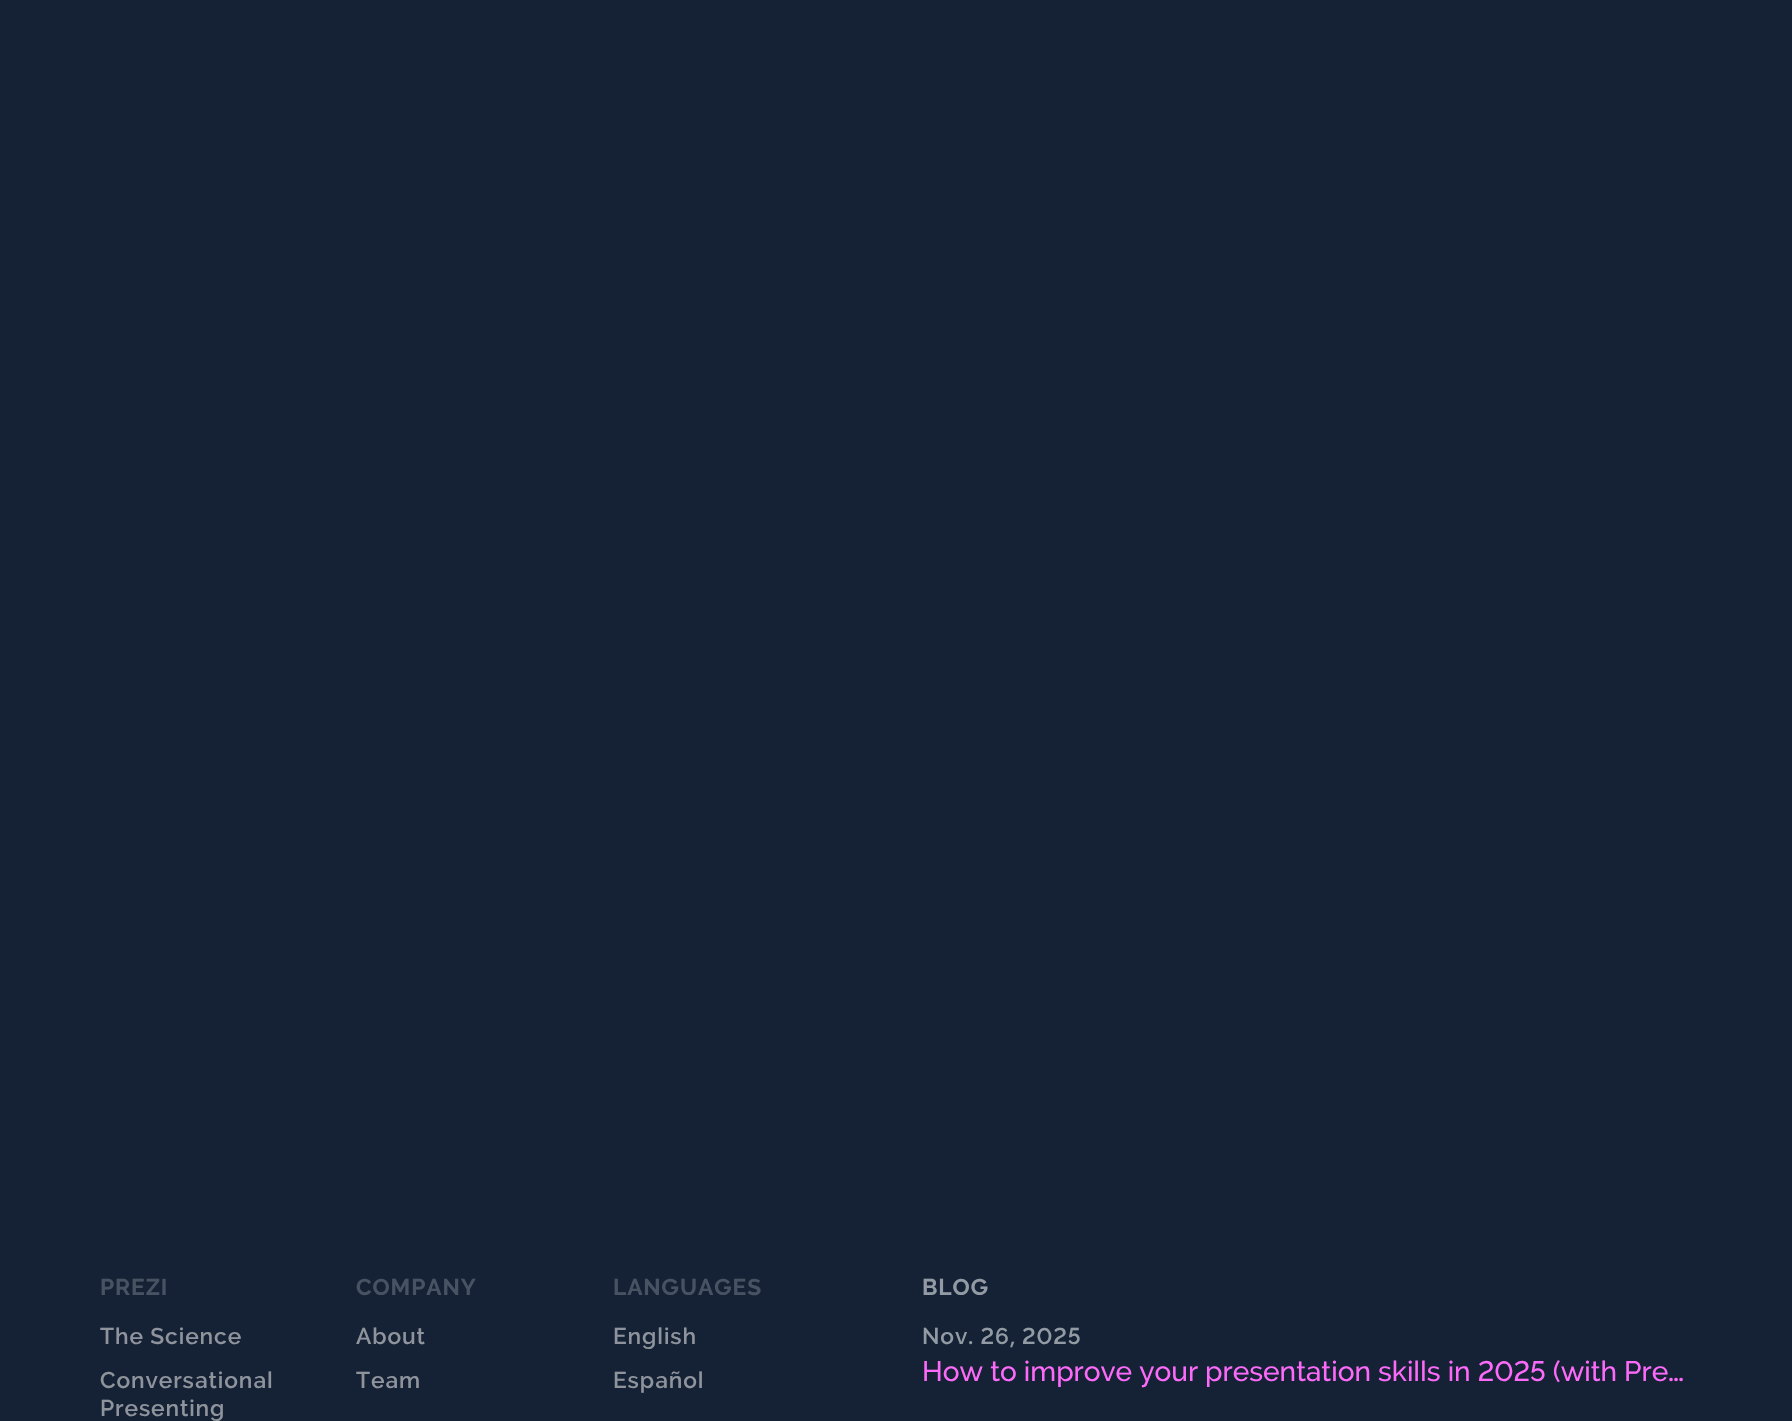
#include "include/core/SkBlurTypes.h"
#include "include/core/SkCanvas.h"
#include "include/core/SkData.h"
#include "include/core/SkFont.h"
#include "include/core/SkFontMgr.h"
#include "include/core/SkImage.h"
#include "include/core/SkMaskFilter.h"
#include "include/core/SkPaint.h"
#include "include/core/SkPathBuilder.h"
#include "include/core/SkTextBlob.h"
#include "include/effects/SkDashPathEffect.h"
#include "include/effects/SkGradientShader.h"
#include "include/utils/SkParsePath.h"

extern sk_sp<SkFontMgr> fontMgr;

static SkFont font(const char* family, int weight, float size, bool italic = false) {
    SkFontStyle style(weight, SkFontStyle::kNormal_Width,
        italic ? SkFontStyle::kItalic_Slant : SkFontStyle::kUpright_Slant);
    SkFont result(fontMgr->matchFamilyStyle(family, style), size);
    result.setSubpixel(true);
    return result;
}

static void drawLabel(SkCanvas* canvas, const char* s, float x, float y, const SkFont& font, SkColor color) {
    SkPaint ink(SkColor4f::FromColor(color));
    ink.setAntiAlias(true);
    canvas->drawString(s, x, y, font, ink);
}

static void drawTracked(SkCanvas* canvas, const char* s, float x, float y, const SkFont& font, const SkPaint& ink, float letter, float word) {
    std::vector<SkGlyphID> glyphs(font.countText(s, strlen(s), SkTextEncoding::kUTF8));
    std::vector<float> xs(glyphs.size());
    font.textToGlyphs(s, strlen(s), SkTextEncoding::kUTF8, glyphs);
    font.getXPos(glyphs, xs, x);
    float extra = 0;
    for (size_t i = 0; i < glyphs.size(); i++) {
        xs[i] += extra;
        extra += letter + word * (glyphs[i] == font.unicharToGlyph(' '));
    }
    canvas->drawTextBlob(SkTextBlob::MakeFromPosHGlyphs(glyphs, xs, y, font), 0, 0, ink);
}

void draw(SkCanvas* canvas) {
    SkPaint paint;
    paint.setAntiAlias(true);
    canvas->clear(0xFF152235);
    SkFont font1 = font("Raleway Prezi", 700, 22.75f);
    paint.setColor(0xFF475262);
    drawTracked(canvas, "PREZI", 100, 1295, font1, paint, 0.9f, 0);
    SkFont font2 = font("Raleway Prezi", 600, 22.75f);
    paint.setColor(0xFF8E939C);
    drawTracked(canvas, "The Science", 100, 1344, font2, paint, 0.9f, 0);
    drawTracked(canvas, "Conversational", 100, 1388, font2, paint, 0.9f, 0);
    drawTracked(canvas, "Presenting", 100, 1416, font2, paint, 0.9f, 0);
    paint.setColor(0xFF475262);
    drawTracked(canvas, "COMPANY", 356, 1295, font1, paint, 0.9f, 0);
    paint.setColor(0xFF8E939C);
    drawTracked(canvas, "About", 356, 1344, font2, paint, 0.9f, 0);
    drawTracked(canvas, "Team", 356, 1388, font2, paint, 0.9f, 0);
    paint.setColor(0xFF475262);
    drawTracked(canvas, "LANGUAGES", 613, 1295, font1, paint, 0.9f, 0);
    paint.setColor(0xFF8E939C);
    drawTracked(canvas, "English", 613, 1344, font2, paint, 0.9f, 0);
    drawTracked(canvas, "Español", 613, 1388, font2, paint, 0.9f, 0);
    paint.setColor(0xFF929AA3);
    drawTracked(canvas, "BLOG", 922, 1295, font1, paint, 0.9f, 0);
    drawTracked(canvas, "Nov. 26, 2025", 922, 1344, font2, paint, 0.9f, 0);
    SkFont font3 = font("Raleway Prezi", 500, 28);
    drawLabel(canvas, "How to improve your presentation skills in 2025 (with Pre…", 922, 1381, font3, 0xFFFD6AFA);
}
